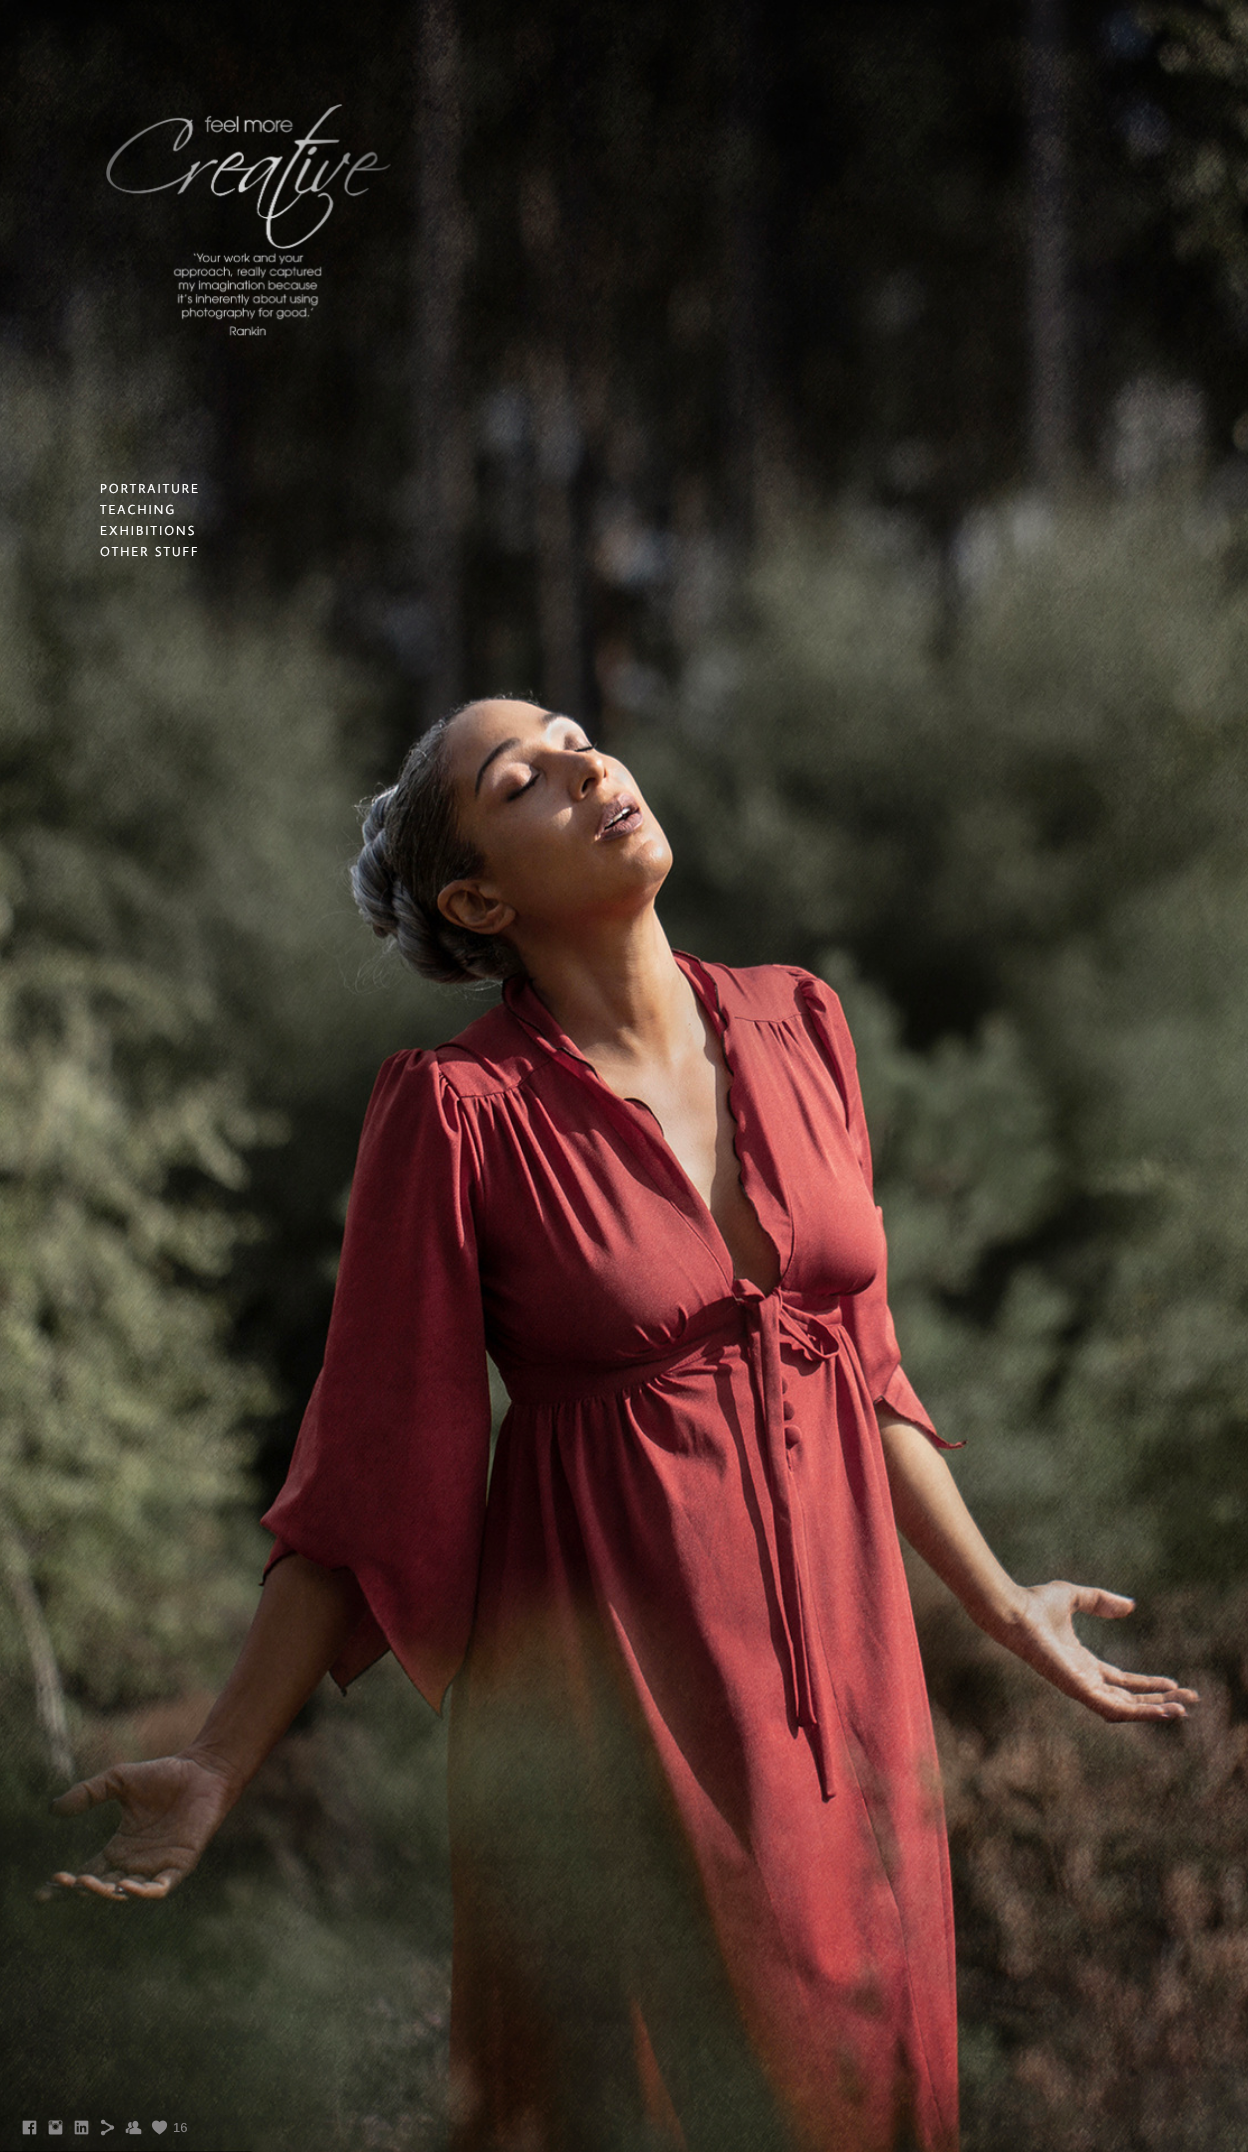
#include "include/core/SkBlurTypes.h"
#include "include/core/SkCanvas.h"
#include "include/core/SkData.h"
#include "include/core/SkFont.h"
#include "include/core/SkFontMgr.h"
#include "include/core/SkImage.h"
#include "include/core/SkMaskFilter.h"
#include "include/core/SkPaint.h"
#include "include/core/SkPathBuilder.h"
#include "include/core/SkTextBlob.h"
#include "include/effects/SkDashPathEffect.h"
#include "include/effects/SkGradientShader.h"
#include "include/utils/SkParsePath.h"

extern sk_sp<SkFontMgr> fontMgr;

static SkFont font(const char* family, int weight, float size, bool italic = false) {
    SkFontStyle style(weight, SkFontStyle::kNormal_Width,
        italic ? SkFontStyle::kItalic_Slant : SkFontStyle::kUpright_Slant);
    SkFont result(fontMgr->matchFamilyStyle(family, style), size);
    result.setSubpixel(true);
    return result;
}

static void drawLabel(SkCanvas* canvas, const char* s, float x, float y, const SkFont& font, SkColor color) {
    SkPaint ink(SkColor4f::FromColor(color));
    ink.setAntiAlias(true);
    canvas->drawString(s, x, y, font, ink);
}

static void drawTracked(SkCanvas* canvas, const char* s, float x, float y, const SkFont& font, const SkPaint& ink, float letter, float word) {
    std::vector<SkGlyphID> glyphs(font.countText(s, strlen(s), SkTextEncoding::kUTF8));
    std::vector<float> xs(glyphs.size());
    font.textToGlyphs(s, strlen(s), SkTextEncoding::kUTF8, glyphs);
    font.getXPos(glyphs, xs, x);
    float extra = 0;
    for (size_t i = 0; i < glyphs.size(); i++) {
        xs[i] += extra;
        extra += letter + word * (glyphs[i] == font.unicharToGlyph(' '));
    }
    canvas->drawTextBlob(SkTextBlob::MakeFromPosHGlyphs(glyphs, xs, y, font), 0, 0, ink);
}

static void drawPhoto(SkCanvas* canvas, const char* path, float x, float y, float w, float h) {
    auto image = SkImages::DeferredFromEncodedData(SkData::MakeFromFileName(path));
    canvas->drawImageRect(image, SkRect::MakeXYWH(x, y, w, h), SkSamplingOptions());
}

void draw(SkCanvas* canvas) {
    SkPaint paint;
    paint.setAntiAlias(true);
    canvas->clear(0xFFFFFFFF);
    drawPhoto(canvas, "assets/img1.png", 0, 0, 1248, 2152);
    drawPhoto(canvas, "assets/img2.png", 106, 104, 285, 232);
    SkFont font1 = font("Average Sans", 400, 13);
    paint.setColor(0xFFFFFFFF);
    drawTracked(canvas, "PORTRAITURE", 100, 493, font1, paint, 2, 0);
    drawTracked(canvas, "TEACHING", 100, 514, font1, paint, 2, 0);
    drawTracked(canvas, "EXHIBITIONS", 100, 535, font1, paint, 2, 0);
    drawTracked(canvas, "OTHER STUFF", 100, 556, font1, paint, 2, 0);
    drawPhoto(canvas, "assets/img3.png", 22, 2120, 15, 15);
    drawPhoto(canvas, "assets/img4.png", 48, 2120, 15, 15);
    drawPhoto(canvas, "assets/img5.png", 74, 2120, 15, 15);
    drawPhoto(canvas, "assets/img6.png", 100, 2119, 15, 17);
    drawPhoto(canvas, "assets/img7.png", 125, 2120, 17, 15);
    drawPhoto(canvas, "assets/img8.png", 151, 2120, 17, 15);
    SkFont font2 = font("Liberation Sans", 400, 13);
    drawLabel(canvas, "16", 173, 2132, font2, 0xFF878586);
}
